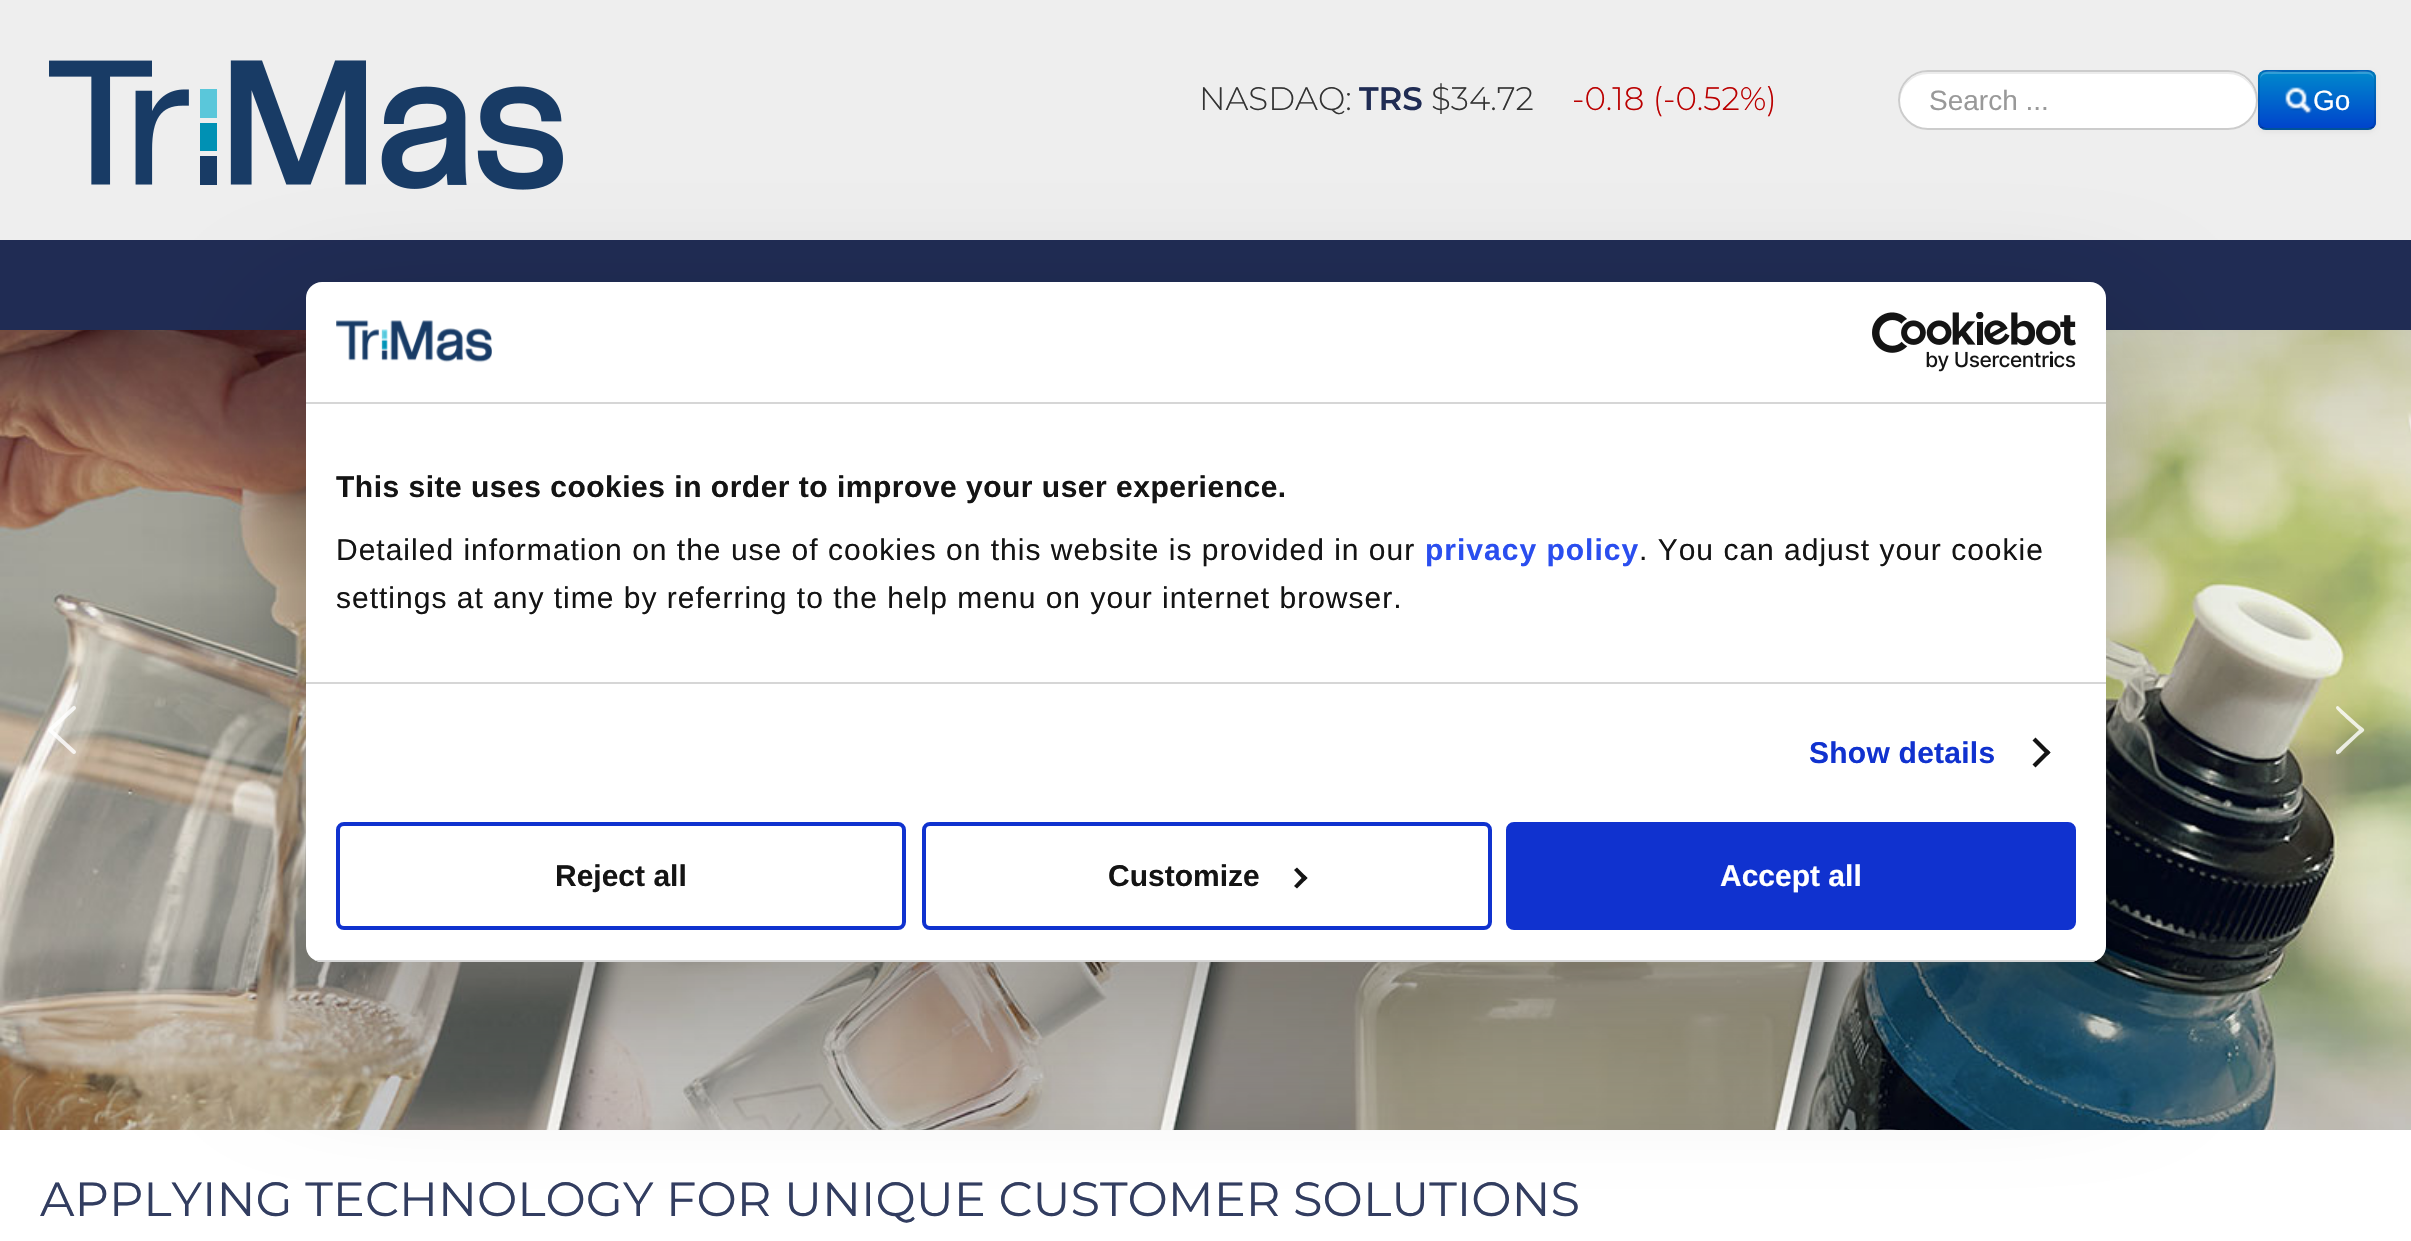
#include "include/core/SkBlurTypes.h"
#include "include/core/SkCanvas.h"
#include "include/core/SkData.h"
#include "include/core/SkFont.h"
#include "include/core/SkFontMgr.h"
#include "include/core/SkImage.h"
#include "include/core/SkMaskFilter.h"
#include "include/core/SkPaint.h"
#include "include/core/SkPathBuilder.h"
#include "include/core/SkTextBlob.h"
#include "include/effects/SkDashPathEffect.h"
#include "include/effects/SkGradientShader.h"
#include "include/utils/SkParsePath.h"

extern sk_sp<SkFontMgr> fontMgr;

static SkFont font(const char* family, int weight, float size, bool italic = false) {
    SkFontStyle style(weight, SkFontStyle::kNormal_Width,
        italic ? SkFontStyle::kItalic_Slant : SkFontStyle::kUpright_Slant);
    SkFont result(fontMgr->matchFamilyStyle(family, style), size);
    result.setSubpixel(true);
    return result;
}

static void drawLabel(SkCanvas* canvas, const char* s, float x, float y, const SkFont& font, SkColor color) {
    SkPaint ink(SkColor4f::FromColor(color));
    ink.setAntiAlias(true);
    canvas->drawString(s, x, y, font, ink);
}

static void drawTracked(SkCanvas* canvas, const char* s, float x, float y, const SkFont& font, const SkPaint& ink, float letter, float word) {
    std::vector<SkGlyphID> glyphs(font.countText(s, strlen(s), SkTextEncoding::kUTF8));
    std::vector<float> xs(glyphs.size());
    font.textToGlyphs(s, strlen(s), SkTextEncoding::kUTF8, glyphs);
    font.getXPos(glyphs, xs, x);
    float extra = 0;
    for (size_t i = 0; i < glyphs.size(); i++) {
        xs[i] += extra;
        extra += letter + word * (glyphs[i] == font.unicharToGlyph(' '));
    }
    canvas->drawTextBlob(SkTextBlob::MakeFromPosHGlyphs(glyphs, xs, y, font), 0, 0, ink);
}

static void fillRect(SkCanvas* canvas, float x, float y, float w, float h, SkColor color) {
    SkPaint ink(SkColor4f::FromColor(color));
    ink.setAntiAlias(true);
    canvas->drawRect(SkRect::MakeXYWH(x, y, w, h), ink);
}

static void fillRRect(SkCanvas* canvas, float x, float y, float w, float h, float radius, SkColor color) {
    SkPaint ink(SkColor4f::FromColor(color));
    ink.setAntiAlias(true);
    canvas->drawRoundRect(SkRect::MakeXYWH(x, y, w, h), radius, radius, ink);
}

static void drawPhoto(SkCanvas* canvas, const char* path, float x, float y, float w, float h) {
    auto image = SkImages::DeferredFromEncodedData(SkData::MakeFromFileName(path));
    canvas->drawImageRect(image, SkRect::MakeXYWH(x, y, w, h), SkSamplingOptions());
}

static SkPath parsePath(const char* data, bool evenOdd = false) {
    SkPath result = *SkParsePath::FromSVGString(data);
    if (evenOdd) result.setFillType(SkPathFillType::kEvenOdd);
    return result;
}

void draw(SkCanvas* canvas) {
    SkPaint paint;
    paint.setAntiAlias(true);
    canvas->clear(0xFFEEEEEE);
    drawPhoto(canvas, "assets/img1.png", 49, 60, 514, 130);
    SkFont font1 = font("Montserrat", 300, 32.5f);
    drawLabel(canvas, "NASDAQ:", 1199, 110, font1, 0xFF333333);
    SkFont font2 = font("Montserrat", 600, 32.5f);
    drawLabel(canvas, "TRS", 1359, 110, font2, 0xFF202C54);
    drawLabel(canvas, "$34.72", 1431, 110, font1, 0xFF333333);
    drawLabel(canvas, "-0.18 (-0.52%)", 1572, 110, font1, 0xFFBB0000);
    fillRRect(canvas, 1898, 70, 360, 60, 30, 0xFFFFFFFF);
    paint.setColor(0xFFECECEC);
    canvas->drawPath(parsePath("M1928 74H2228C2243 74 2255 86 2256 101V100C2256 85 2243 72 2228 72H1928C1913 72 1900 85 1900 100V101C1901 86 1913 74 1928 74Z"), paint);
    paint.setStroke(true);
    paint.setStrokeWidth(2);
    paint.setColor(0xFFCCCCCC);
    canvas->drawRoundRect(SkRect::MakeXYWH(1899, 71, 358, 58), 29, 29, paint);
    SkFont font3 = font("Liberation Sans", 400, 28);
    drawLabel(canvas, "Search ...", 1929, 110, font3, 0xFF999999);
    paint.setStroke(false);
    paint.setColor(0x0D000000);
    paint.setMaskFilter(SkMaskFilter::MakeBlur(kNormal_SkBlurStyle, 2));
    canvas->drawRoundRect(SkRect::MakeXYWH(2258, 72, 118, 60), 8, 8, paint);
    paint.setMaskFilter(nullptr);
    fillRRect(canvas, 2258, 70, 118, 60, 8, 0xFF006DCC);
    canvas->save();
    canvas->clipPath(parsePath("M2266 70H2368C2372.5 70 2376 73.5 2376 78V122C2376 126.5 2372.5 130 2368 130H2266C2261.5 130 2258 126.5 2258 122V78C2258 73.5 2261.5 70 2266 70Z"), true);
    {
        const SkColor colors[] = {0xFF0088CC, 0xFF0044CC};
        const float stops[] = {0, 1};
        const SkPoint ends[] = {{2317, 72}, {2317, 128}};
        paint.setShader(SkGradientShader::MakeLinear(ends, colors, stops, 2, SkTileMode::kClamp));
        paint.setAlpha(255);
    }
    canvas->drawRect(SkRect::MakeXYWH(2258, 72, 118, 56), paint);
    canvas->restore();
    paint.setShader(nullptr);
    paint.setColor(0x33FFFFFF);
    canvas->drawPath(parsePath("M2266 74H2368C2371 74 2374 77 2374 80C2374 68 2360 72 2351 72H2283C2274 72 2260 68 2260 80C2260 77 2263 74 2266 74Z"), paint);
    paint.setStroke(true);
    paint.setColor(0x40000000);
    canvas->drawPath(parsePath("M2373 127C2371.5 128.5 2370 129 2368 129H2266C2264 129 2262.5 128.5 2261 127"), paint);
    paint.setColor(0x1A000000);
    canvas->drawPath(parsePath("M2261 127C2259.5 125.5 2259 124 2259 122V78C2259 76 2259.5 74.5 2261 73C2262.5 71.5 2264 71 2266 71H2368C2370 71 2371.5 71.5 2373 73C2374.5 74.5 2375 76 2375 78V122C2375 124 2374.5 125.5 2373 127"), paint);
    drawPhoto(canvas, "assets/img2.png", 2285, 87, 27, 27);
    drawLabel(canvas, "Go", 2313, 110, font3, 0xFFFFFFFF);
    fillRect(canvas, 0, 240, 2411, 90, 0xFF202C54);
    fillRect(canvas, 0, 1130, 2411, 111, 0xFFFFFFFF);
    drawPhoto(canvas, "assets/img5.png", 0, 330, 2411, 800);
    paint.setStroke(false);
    paint.setColor(0x4D000000);
    paint.setMaskFilter(SkMaskFilter::MakeBlur(kNormal_SkBlurStyle, 68));
    canvas->drawRoundRect(SkRect::MakeXYWH(306, 346, 1800, 680), 16, 16, paint);
    paint.setMaskFilter(nullptr);
    fillRRect(canvas, 306, 282, 1800, 680, 16, 0xFFFFFFFF);
    fillRect(canvas, 306, 402, 1800, 2, 0xFFD6D6D6);
    drawPhoto(canvas, "assets/img3.png", 336, 320, 156, 43);
    drawPhoto(canvas, "assets/img4.png", 1872, 312, 204, 60);
    fillRect(canvas, 306, 682, 1800, 2, 0xFFD6D6D6);
    SkFont font4 = font("Liberation Sans", 700, 30);
    paint.setColor(0xFF141414);
    drawTracked(canvas, "This site uses cookies in order to improve your user experience.", 336, 497, font4, paint, 0.5f, 0);
    SkFont font5 = font("Liberation Sans", 400, 30);
    drawTracked(canvas, "Detailed information on the use of cookies on this website is provided in our", 336, 560, font5, paint, 1, 0);
    paint.setColor(0xFF2A4EEF);
    drawTracked(canvas, "privacy policy", 1425, 560, font4, paint, 1, 0);
    paint.setColor(0xFF141414);
    drawTracked(canvas, ". You can adjust your cookie", 1639, 560, font5, paint, 1, 0);
    drawTracked(canvas, "settings at any time by referring to the help menu on your internet browser.", 336, 608, font5, paint, 1, 0);
    paint.setColor(0xFF1032CF);
    drawTracked(canvas, "Show details", 1809, 763, font4, paint, 0.25f, 0);
    paint.setColor(0xFF141414);
    canvas->drawPath(parsePath("M2035.5 737.5L2050.5 752.5L2047.5 755.5L2032.5 740.5Z"), paint);
    canvas->drawPath(parsePath("M2047.5 749.5L2050.5 752.5L2035.5 767.5L2032.5 764.5Z"), paint);
    canvas->save();
    canvas->clipPath(parsePath("M322 282H2090C2099 282 2106 289 2106 298V946C2106 955 2099 962 2090 962H322C313 962 306 955 306 946V298C306 289 313 282 322 282Z"), true);
    fillRect(canvas, 306, 960, 1800, 2, 0xFFD6D6D6);
    canvas->restore();
    paint.setStroke(true);
    paint.setStrokeWidth(4);
    paint.setColor(0xFF1032CF);
    canvas->drawRoundRect(SkRect::MakeXYWH(338, 824, 566, 104), 6, 6, paint);
    drawLabel(canvas, "Reject all", 555, 886, font4, 0xFF141414);
    canvas->drawRoundRect(SkRect::MakeXYWH(924, 824, 566, 104), 6, 6, paint);
    drawLabel(canvas, "Customize", 1108, 886, font4, 0xFF141414);
    paint.setStroke(false);
    paint.setColor(0xFF141414);
    canvas->drawPath(parsePath("M1297 867.5L1307.5 878L1304.5 881L1294 870Z"), paint);
    canvas->drawPath(parsePath("M1304.5 875L1307.5 878L1297 888.5L1294 886Z"), paint);
    paint.setColor(0xFF1032CF);
    canvas->drawRoundRect(SkRect::MakeXYWH(1508, 824, 566, 104), 6, 6, paint);
    paint.setStroke(true);
    canvas->drawRoundRect(SkRect::MakeXYWH(1508, 824, 566, 104), 6, 6, paint);
    drawLabel(canvas, "Accept all", 1720, 886, font4, 0xFFFFFFFF);
    drawPhoto(canvas, "assets/img6.png", 48, 706, 28, 48);
    paint.setStroke(false);
    paint.setColor(0xCCFFFFFF);
    canvas->drawPath(parsePath("M2339 707C2338 705 2336 706 2336 708C2336 710 2356 727 2359 730L2336 751V753C2338 757 2343 750 2343 750L2359 735C2366 730 2366 730 2359 725Z", true), paint);
    SkFont font6 = font("Montserrat", 400, 48);
    drawLabel(canvas, "APPLYING TECHNOLOGY FOR UNIQUE CUSTOMER SOLUTIONS", 40, 1216, font6, 0xFF323D60);
}
